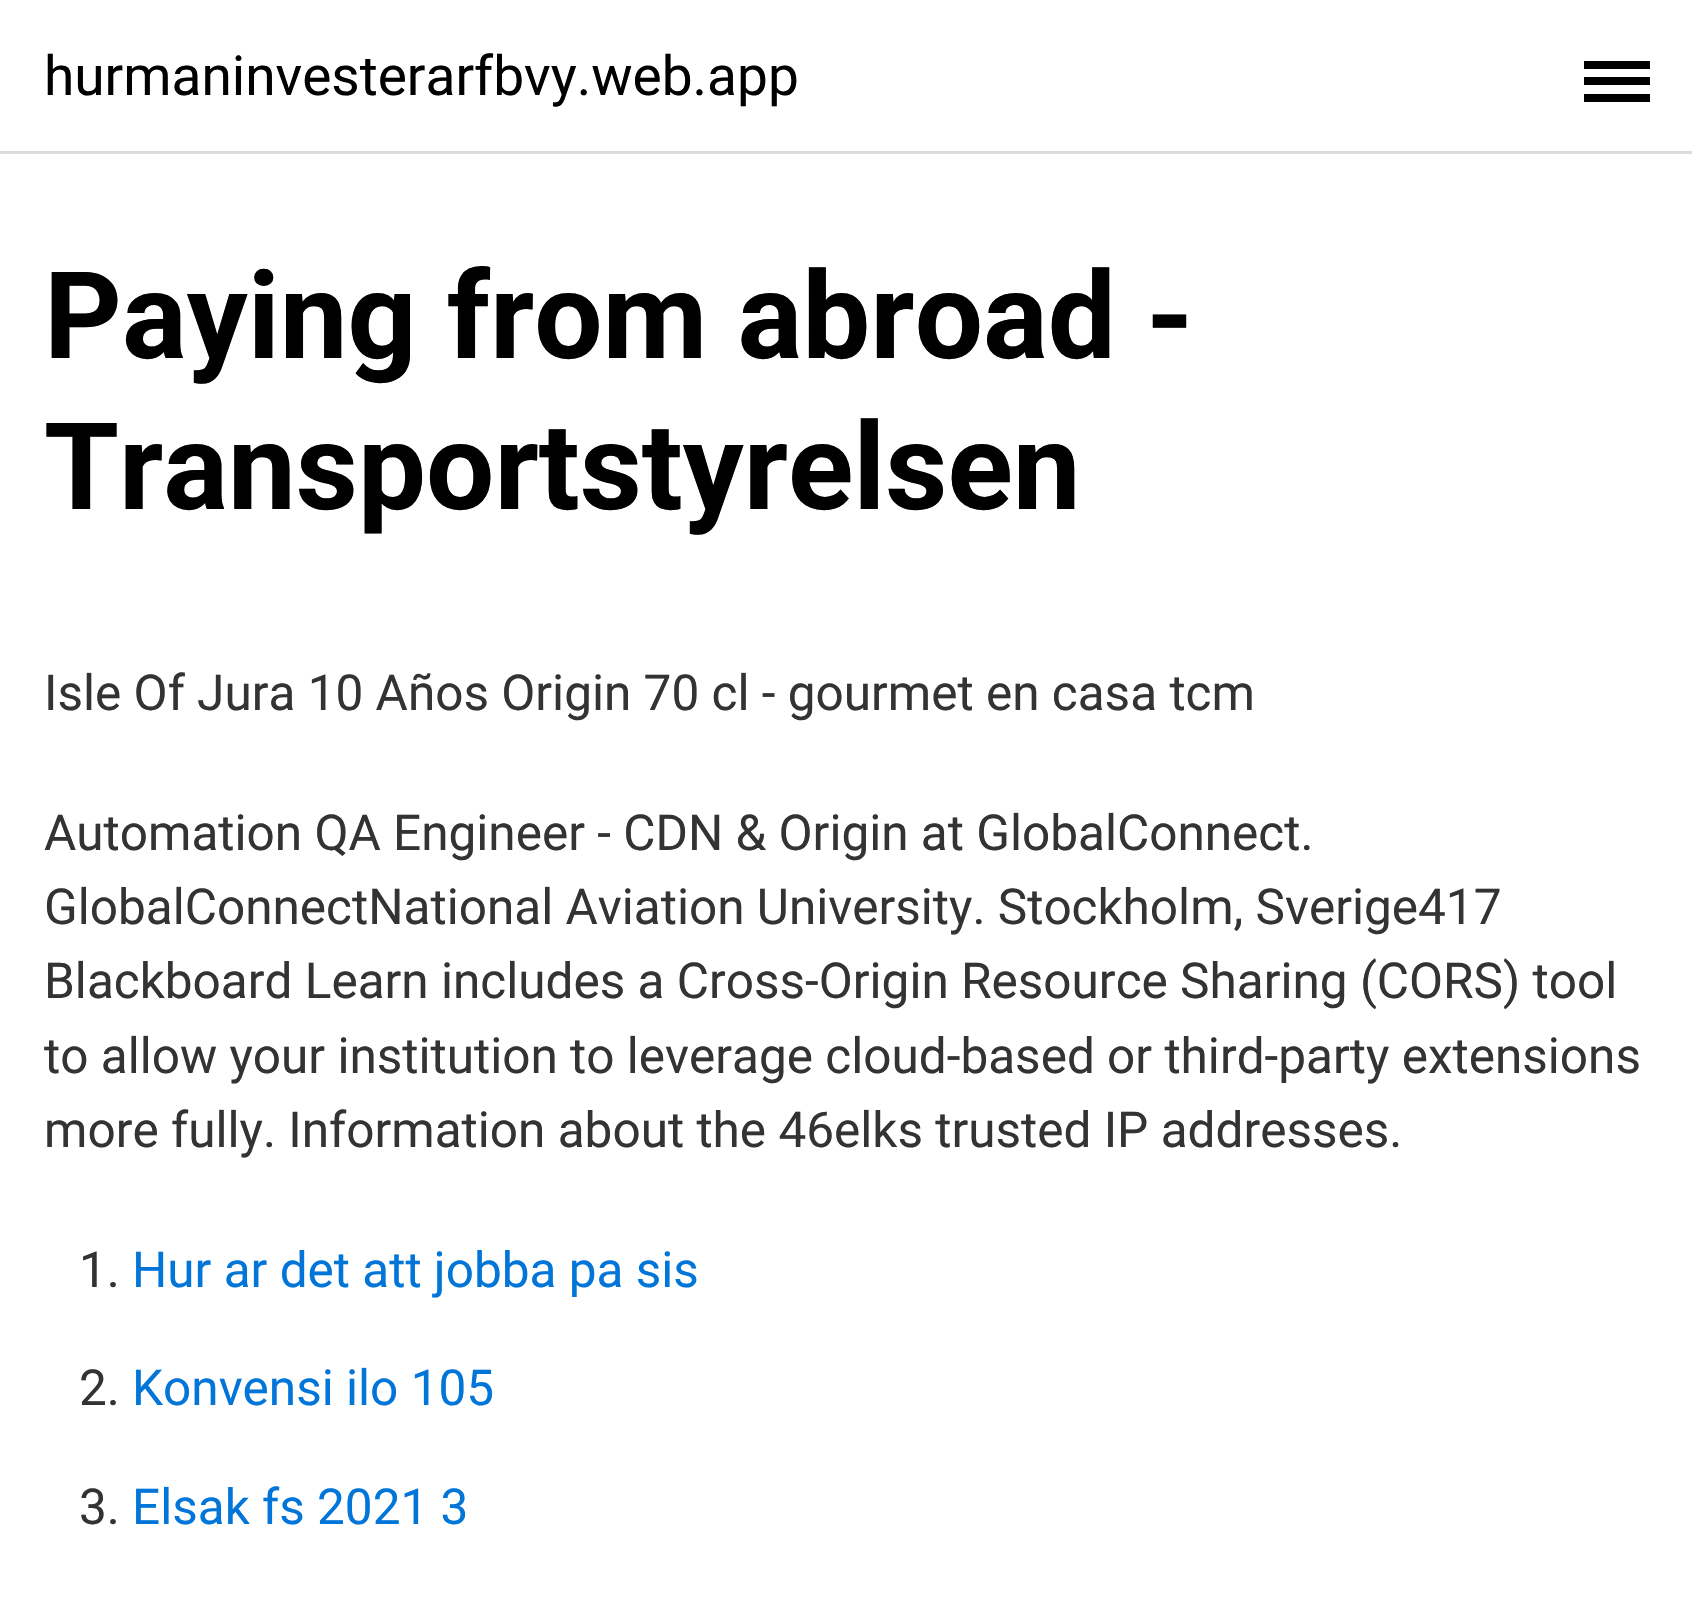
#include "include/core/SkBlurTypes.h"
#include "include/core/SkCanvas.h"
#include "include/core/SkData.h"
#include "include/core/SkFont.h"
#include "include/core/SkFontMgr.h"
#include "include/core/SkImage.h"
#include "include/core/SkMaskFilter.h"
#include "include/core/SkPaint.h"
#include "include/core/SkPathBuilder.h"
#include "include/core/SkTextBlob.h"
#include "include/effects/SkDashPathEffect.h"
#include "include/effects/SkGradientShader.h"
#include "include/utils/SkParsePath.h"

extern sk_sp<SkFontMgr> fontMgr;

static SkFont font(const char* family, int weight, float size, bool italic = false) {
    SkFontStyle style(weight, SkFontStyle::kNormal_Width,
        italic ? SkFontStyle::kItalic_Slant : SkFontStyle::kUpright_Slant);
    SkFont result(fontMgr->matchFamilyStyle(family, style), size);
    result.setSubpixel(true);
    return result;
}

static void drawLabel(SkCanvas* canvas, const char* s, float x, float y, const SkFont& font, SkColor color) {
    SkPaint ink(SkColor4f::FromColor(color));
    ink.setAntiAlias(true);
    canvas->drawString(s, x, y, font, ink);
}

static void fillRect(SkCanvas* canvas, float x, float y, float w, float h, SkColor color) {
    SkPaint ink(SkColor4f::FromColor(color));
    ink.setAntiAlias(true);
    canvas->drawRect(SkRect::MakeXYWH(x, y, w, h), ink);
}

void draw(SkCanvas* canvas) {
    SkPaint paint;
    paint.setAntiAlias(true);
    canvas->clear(0xFFFFFFFF);
    fillRect(canvas, 0, 151, 1692, 3, 0xFFDBDBDB);
    SkFont font1 = font("Roboto", 400, 55);
    drawLabel(canvas, "hurmaninvesterarfbvy.web.app", 44, 95, font1, 0xFF000000);
    fillRect(canvas, 1584, 77, 66, 8, 0xFF000000);
    fillRect(canvas, 1584, 61, 66, 8, 0xFF000000);
    fillRect(canvas, 1584, 94, 66, 8, 0xFF000000);
    SkFont font2 = font("Roboto", 700, 121);
    drawLabel(canvas, "Paying from abroad -", 44, 358, font2, 0xFF000000);
    drawLabel(canvas, "Transportstyrelsen", 44, 509, font2, 0xFF000000);
    SkFont font3 = font("Roboto", 400, 49.5f);
    drawLabel(canvas, "Isle Of Jura 10 Años Origin 70 cl - gourmet en casa tcm", 44, 710, font3, 0xFF333333);
    drawLabel(canvas, "Automation QA Engineer - CDN & Origin at GlobalConnect.", 44, 850, font3, 0xFF333333);
    drawLabel(canvas, "GlobalConnectNational Aviation University. Stockholm, Sverige417", 44, 924, font3, 0xFF333333);
    drawLabel(canvas, "Blackboard Learn includes a Cross-Origin Resource Sharing (CORS) tool", 44, 998, font3, 0xFF333333);
    drawLabel(canvas, "to allow your institution to leverage cloud-based or third-party extensions", 44, 1073, font3, 0xFF333333);
    drawLabel(canvas, "more fully. Information about the 46elks trusted IP addresses.", 44, 1147, font3, 0xFF333333);
    drawLabel(canvas, "1.", 79, 1287, font3, 0xFF333333);
    drawLabel(canvas, "Hur ar det att jobba pa sis", 132, 1287, font3, 0xFF0275D8);
    drawLabel(canvas, "2.", 79, 1405, font3, 0xFF333333);
    drawLabel(canvas, "Konvensi ilo 105", 132, 1405, font3, 0xFF0275D8);
    drawLabel(canvas, "3.", 79, 1524, font3, 0xFF333333);
    drawLabel(canvas, "Elsak fs 2021 3", 132, 1524, font3, 0xFF0275D8);
}
